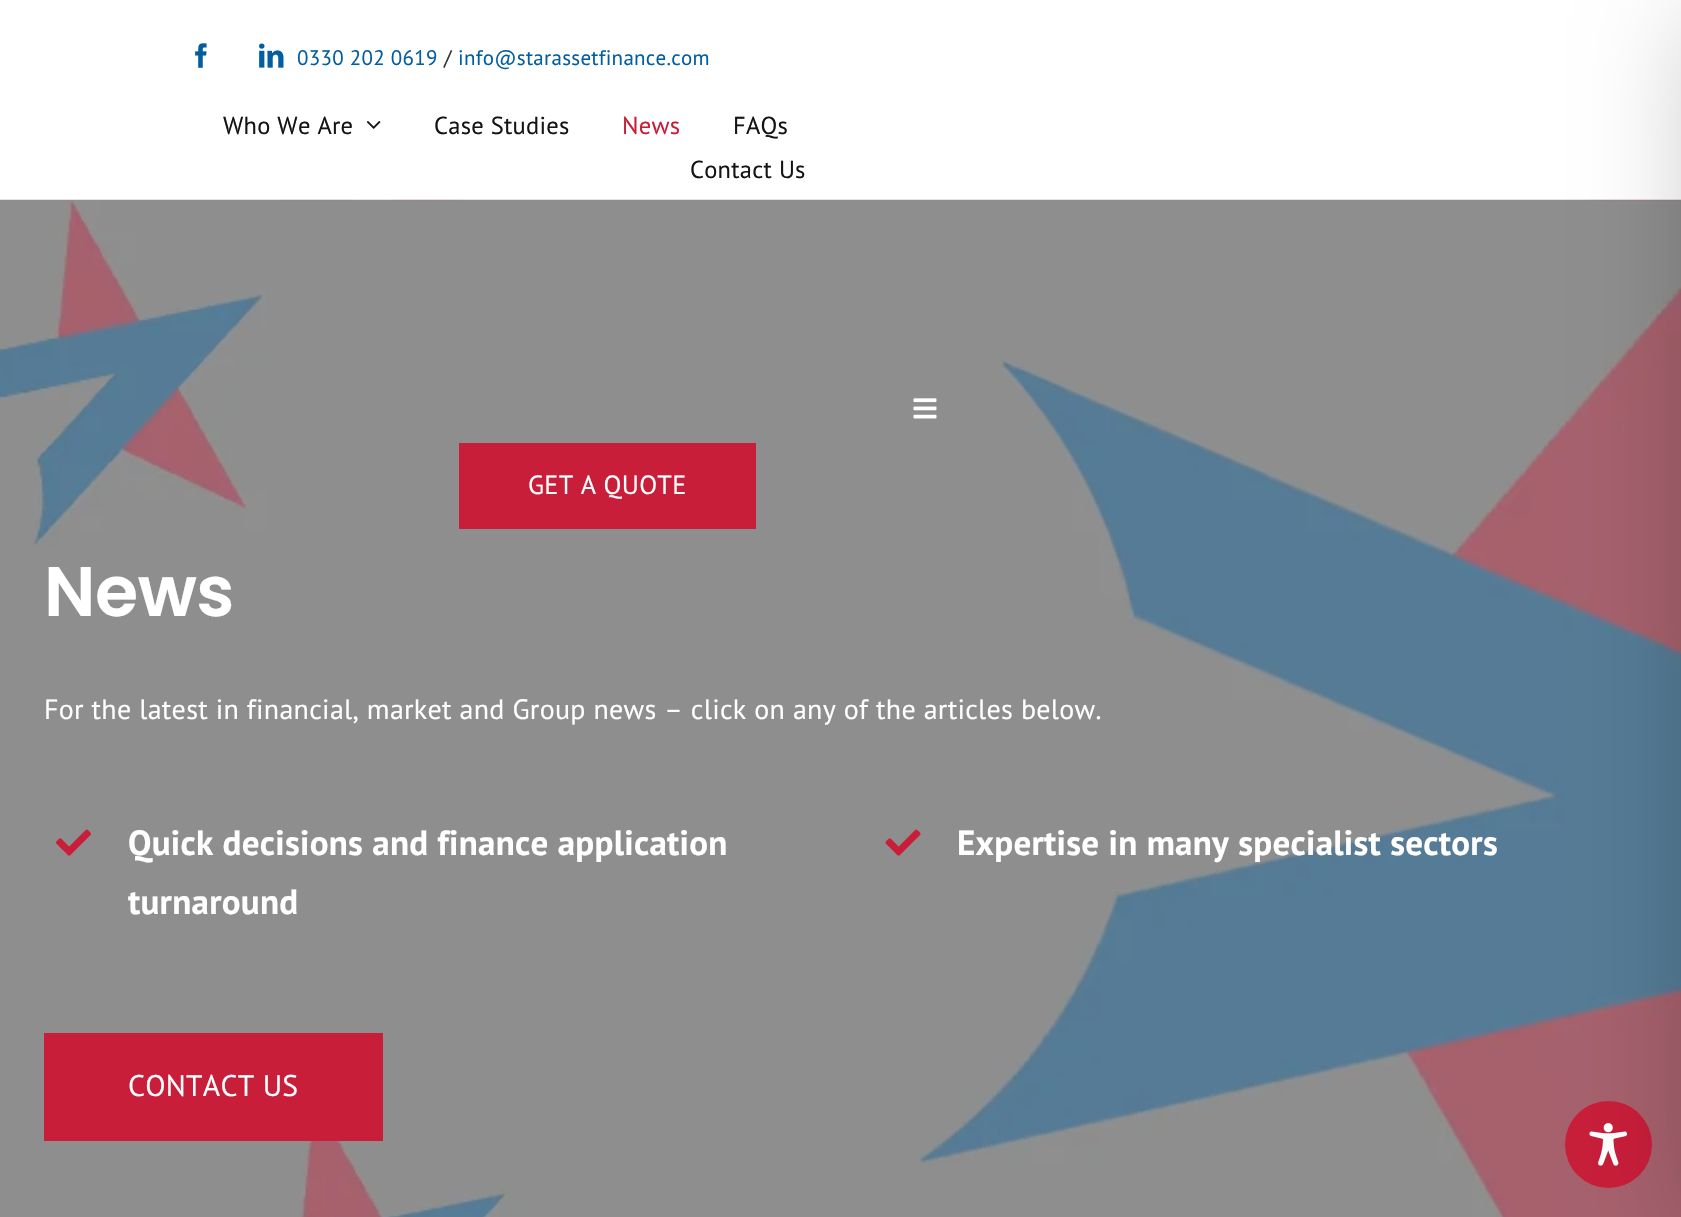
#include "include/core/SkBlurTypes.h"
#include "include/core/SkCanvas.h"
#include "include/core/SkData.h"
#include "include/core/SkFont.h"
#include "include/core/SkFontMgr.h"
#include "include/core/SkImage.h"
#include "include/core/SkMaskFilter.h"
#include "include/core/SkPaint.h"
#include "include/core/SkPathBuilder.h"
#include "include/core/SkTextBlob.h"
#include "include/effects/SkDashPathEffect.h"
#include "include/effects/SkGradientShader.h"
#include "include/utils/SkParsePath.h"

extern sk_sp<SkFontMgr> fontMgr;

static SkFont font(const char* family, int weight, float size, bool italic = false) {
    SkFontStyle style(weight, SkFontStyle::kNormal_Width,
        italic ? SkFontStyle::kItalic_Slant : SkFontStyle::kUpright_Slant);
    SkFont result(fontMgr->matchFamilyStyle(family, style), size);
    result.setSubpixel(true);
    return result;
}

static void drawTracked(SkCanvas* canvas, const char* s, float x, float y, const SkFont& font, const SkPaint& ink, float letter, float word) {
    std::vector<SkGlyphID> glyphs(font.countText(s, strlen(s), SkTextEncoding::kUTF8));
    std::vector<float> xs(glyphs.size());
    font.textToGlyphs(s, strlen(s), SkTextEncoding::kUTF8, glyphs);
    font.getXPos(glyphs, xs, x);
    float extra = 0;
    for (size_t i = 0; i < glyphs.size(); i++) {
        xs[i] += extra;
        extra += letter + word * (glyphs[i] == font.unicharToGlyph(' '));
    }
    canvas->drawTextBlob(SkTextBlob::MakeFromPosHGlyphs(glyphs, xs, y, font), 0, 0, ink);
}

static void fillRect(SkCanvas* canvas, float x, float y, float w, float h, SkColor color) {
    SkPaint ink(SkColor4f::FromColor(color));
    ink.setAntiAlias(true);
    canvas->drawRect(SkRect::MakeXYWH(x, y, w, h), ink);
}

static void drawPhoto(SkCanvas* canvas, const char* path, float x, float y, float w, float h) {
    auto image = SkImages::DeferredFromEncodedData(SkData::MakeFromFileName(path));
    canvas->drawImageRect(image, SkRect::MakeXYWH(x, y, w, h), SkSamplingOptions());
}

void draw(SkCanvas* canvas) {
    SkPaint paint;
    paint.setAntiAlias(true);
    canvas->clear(0xFFFFFFFF);
    drawPhoto(canvas, "assets/img1.png", 195, 43, 12, 25);
    drawPhoto(canvas, "assets/img2.png", 259, 43, 25, 25);
    SkFont font1 = font("PT Sans", 400, 21);
    paint.setColor(0xFF025EA1);
    drawTracked(canvas, "0330 202 0619", 297, 65, font1, paint, 0.28f, 0);
    paint.setColor(0xFF363636);
    drawTracked(canvas, "/", 444, 65, font1, paint, 0.28f, 0);
    paint.setColor(0xFF025EA1);
    drawTracked(canvas, "info@starassetfinance.com", 458, 65, font1, paint, 0.28f, 0);
    SkFont font2 = font("PT Sans", 400, 24.5f);
    paint.setColor(0xFF141414);
    drawTracked(canvas, "Who We Are", 223, 134, font2, paint, 0.25f, 0);
    drawPhoto(canvas, "assets/img3.png", 366, 121, 15, 8);
    drawTracked(canvas, "Case Studies", 434, 134, font2, paint, 0.25f, 0);
    paint.setColor(0xFFC81E3A);
    drawTracked(canvas, "News", 622, 134, font2, paint, 0.25f, 0);
    paint.setColor(0xFF141414);
    drawTracked(canvas, "FAQs", 733, 134, font2, paint, 0.25f, 0);
    drawTracked(canvas, "Contact Us", 690, 178, font2, paint, 0.25f, 0);
    drawPhoto(canvas, "assets/img5.png", 0, 199, 1681, 1018);
    drawPhoto(canvas, "assets/img4.png", 913, 398, 24, 21);
    fillRect(canvas, 459, 443, 297, 86, 0xFFC81E3A);
    SkFont font3 = font("PT Sans", 400, 26.25f);
    paint.setColor(0xFFFFFFFF);
    drawTracked(canvas, "GET A QUOTE", 528, 494, font3, paint, 0.25f, 0);
    SkFont font4 = font("Poppins", 600, 70);
    drawTracked(canvas, "News", 44, 616, font4, paint, -0.5f, 0);
    SkFont font5 = font("PT Sans", 400, 28);
    drawTracked(canvas, "For the latest in financial, market and Group news – click on any of the articles below.", 44, 719, font5, paint, 0.28f, 0);
    drawPhoto(canvas, "assets/img6.png", 56, 829, 35, 27);
    SkFont font6 = font("PT Sans", 700, 35);
    drawTracked(canvas, "Quick decisions and finance application", 128, 855, font6, paint, 0.28f, 0);
    drawTracked(canvas, "turnaround", 128, 914, font6, paint, 0.28f, 0);
    drawPhoto(canvas, "assets/img7.png", 885, 829, 36, 27);
    drawTracked(canvas, "Expertise in many specialist sectors", 957, 855, font6, paint, 0.28f, 0);
    fillRect(canvas, 44, 1033, 339, 108, 0xFFC81E3A);
    SkFont font7 = font("PT Sans", 400, 29.75f);
    drawTracked(canvas, "CONTACT US", 128, 1096, font7, paint, 0.25f, 0);
    paint.setColor(0xFFC81E3A);
    canvas->drawCircle(1608.5f, 1144.5f, 43.5f, paint);
    drawPhoto(canvas, "assets/img8.png", 1589, 1123, 38, 43);
    paint.setColor(0x33000000);
    paint.setMaskFilter(SkMaskFilter::MakeBlur(kNormal_SkBlurStyle, 52.5f));
    canvas->drawRect(SkRect::MakeXYWH(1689, 18, 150, 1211), paint);
    paint.setMaskFilter(nullptr);
}
